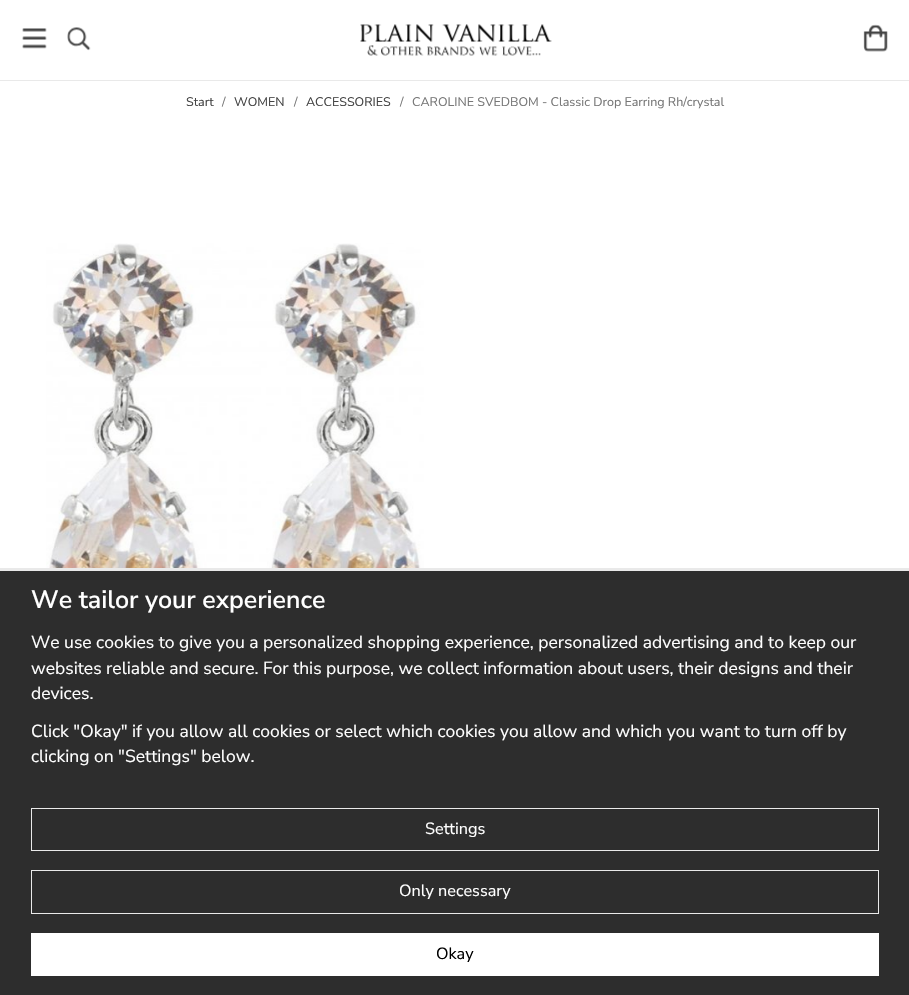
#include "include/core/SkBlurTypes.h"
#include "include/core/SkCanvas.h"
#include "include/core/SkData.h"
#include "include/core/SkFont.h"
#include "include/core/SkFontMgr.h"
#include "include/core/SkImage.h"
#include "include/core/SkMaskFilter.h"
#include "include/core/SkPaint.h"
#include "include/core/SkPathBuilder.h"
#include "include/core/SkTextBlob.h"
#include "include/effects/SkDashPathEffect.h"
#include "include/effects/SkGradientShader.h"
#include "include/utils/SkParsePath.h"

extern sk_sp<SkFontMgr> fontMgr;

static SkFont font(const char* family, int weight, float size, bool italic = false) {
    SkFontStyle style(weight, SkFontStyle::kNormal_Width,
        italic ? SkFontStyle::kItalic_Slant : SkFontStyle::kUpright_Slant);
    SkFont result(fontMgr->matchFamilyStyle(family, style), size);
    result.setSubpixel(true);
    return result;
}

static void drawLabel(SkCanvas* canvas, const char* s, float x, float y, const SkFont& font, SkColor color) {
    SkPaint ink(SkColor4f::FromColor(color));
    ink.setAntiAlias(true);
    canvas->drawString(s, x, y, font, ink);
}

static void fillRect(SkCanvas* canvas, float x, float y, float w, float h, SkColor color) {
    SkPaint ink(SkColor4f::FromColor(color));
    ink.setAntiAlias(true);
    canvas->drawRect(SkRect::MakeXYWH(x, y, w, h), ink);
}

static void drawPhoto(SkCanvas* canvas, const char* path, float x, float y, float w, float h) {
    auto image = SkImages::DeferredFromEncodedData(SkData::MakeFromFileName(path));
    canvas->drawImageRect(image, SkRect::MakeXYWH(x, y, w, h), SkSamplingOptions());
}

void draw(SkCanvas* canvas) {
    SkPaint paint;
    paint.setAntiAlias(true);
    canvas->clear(0xFFFFFFFF);
    fillRect(canvas, 0, 80, 909, 1, 0xFFE9E9E9);
    drawPhoto(canvas, "assets/img1.png", 22, 28, 25, 21);
    drawPhoto(canvas, "assets/img2.png", 67, 27, 24, 24);
    drawPhoto(canvas, "assets/img3.png", 360, 24, 192, 32);
    drawPhoto(canvas, "assets/img4.png", 863, 24, 25, 28);
    SkFont font1 = font("Nunito Sans", 400, 12.5f);
    drawLabel(canvas, "Start", 186, 106, font1, 0xFF444444);
    drawLabel(canvas, "/", 222, 106, font1, 0xFF777777);
    drawLabel(canvas, "WOMEN", 234, 106, font1, 0xFF444444);
    drawLabel(canvas, "/", 294, 106, font1, 0xFF777777);
    drawLabel(canvas, "ACCESSORIES", 306, 106, font1, 0xFF444444);
    drawLabel(canvas, "/", 400, 106, font1, 0xFF777777);
    drawLabel(canvas, "CAROLINE SVEDBOM - Classic Drop Earring Rh/crystal", 412, 106, font1, 0xFF777777);
    drawPhoto(canvas, "assets/img5.png", 46, 243, 378, 325);
    fillRect(canvas, 0, 571, 909, 424, 0xFF2D2D2D);
    fillRect(canvas, 0, 568, 909, 3, 0xFFE9E9E9);
    SkFont font2 = font("Nunito Sans", 600, 25);
    drawLabel(canvas, "We tailor your experience", 31, 608, font2, 0xFFFFFFFF);
    SkFont font3 = font("Nunito Sans", 400, 17.5f);
    drawLabel(canvas, "We use cookies to give you a personalized shopping experience, personalized advertising and to keep our", 31, 648, font3, 0xFFFFFFFF);
    drawLabel(canvas, "websites reliable and secure. For this purpose, we collect information about users, their designs and their", 31, 674, font3, 0xFFFFFFFF);
    drawLabel(canvas, "devices.", 31, 699, font3, 0xFFFFFFFF);
    drawLabel(canvas, "Click \"Okay\" if you allow all cookies or select which cookies you allow and which you want to turn off by", 31, 737, font3, 0xFFFFFFFF);
    drawLabel(canvas, "clicking on \"Settings\" below.", 31, 762, font3, 0xFFFFFFFF);
    paint.setStroke(true);
    paint.setStrokeWidth(1);
    paint.setColor(0xFFEAEAEA);
    canvas->drawRect(SkRect::MakeXYWH(31.5f, 808.5f, 847, 42), paint);
    SkFont font4 = font("Nunito Sans", 400, 16.25f);
    drawLabel(canvas, "Settings", 425, 834, font4, 0xFFFFFFFF);
    canvas->drawRect(SkRect::MakeXYWH(31.5f, 870.5f, 847, 43), paint);
    drawLabel(canvas, "Only necessary", 399, 896, font4, 0xFFFFFFFF);
    fillRect(canvas, 31, 933, 848, 43, 0xFFFFFFFF);
    drawLabel(canvas, "Okay", 436, 959, font4, 0xFF000000);
}
